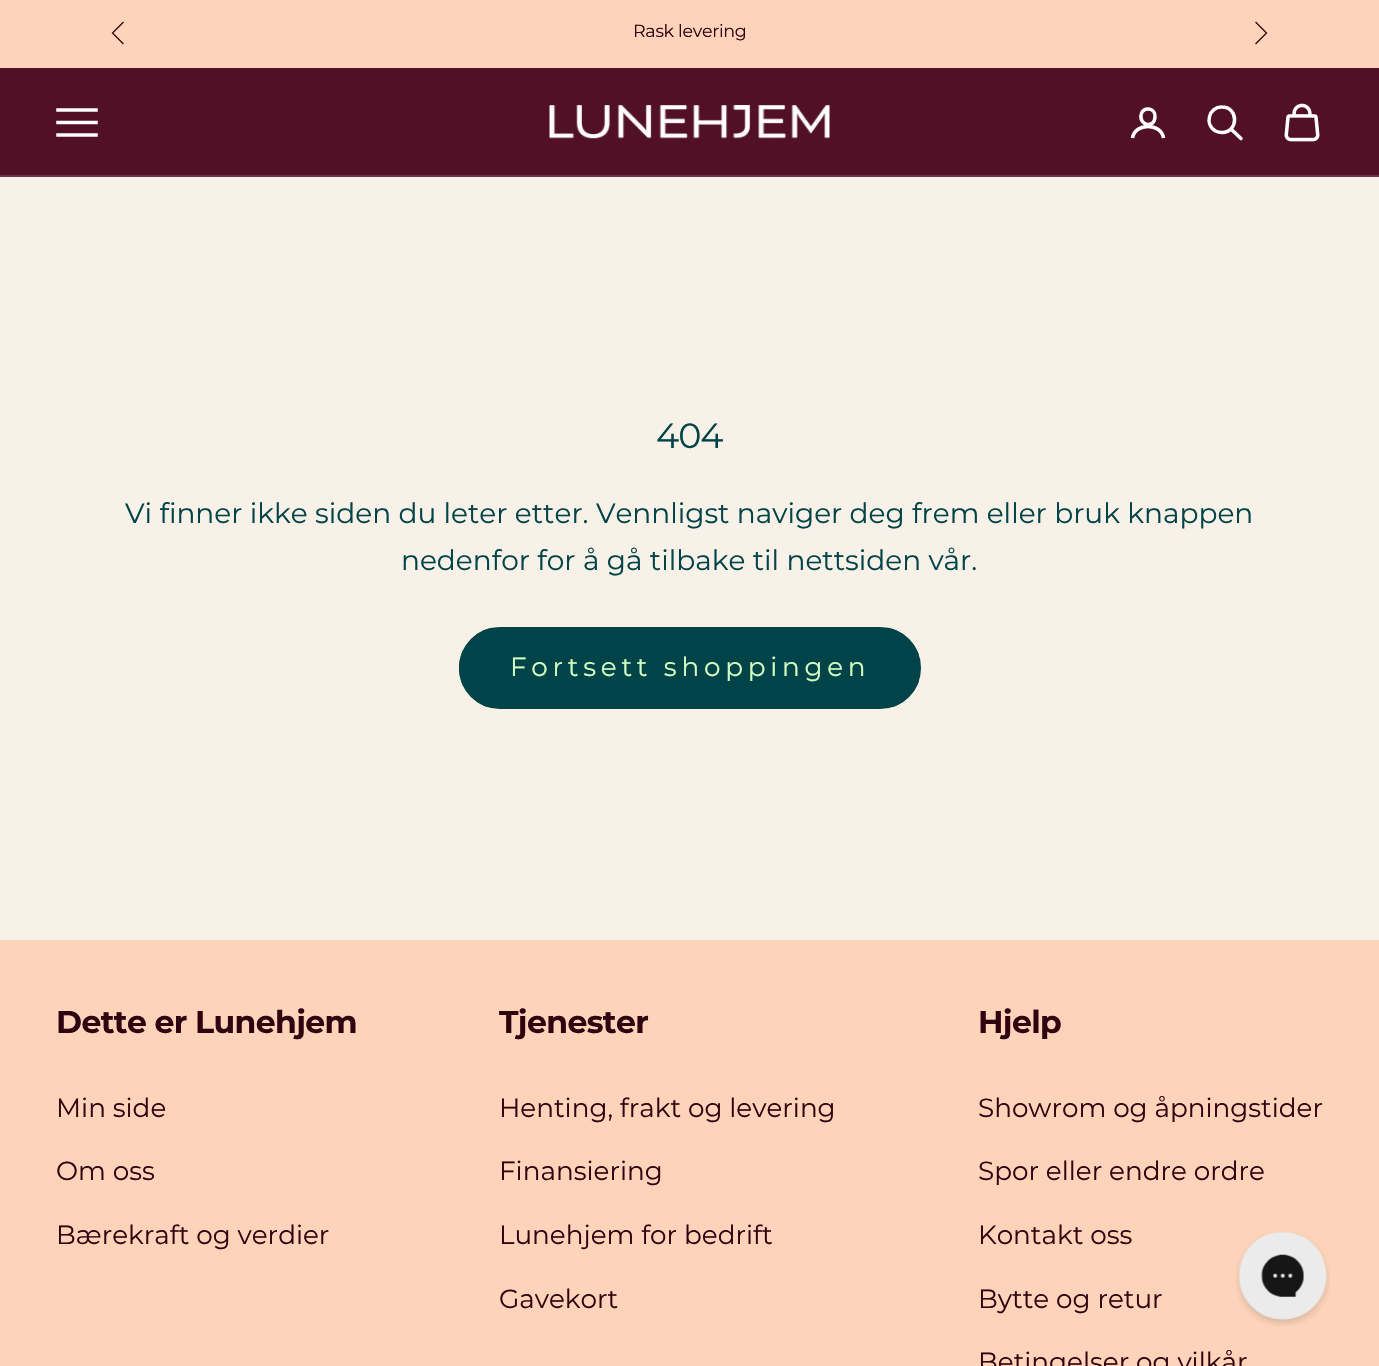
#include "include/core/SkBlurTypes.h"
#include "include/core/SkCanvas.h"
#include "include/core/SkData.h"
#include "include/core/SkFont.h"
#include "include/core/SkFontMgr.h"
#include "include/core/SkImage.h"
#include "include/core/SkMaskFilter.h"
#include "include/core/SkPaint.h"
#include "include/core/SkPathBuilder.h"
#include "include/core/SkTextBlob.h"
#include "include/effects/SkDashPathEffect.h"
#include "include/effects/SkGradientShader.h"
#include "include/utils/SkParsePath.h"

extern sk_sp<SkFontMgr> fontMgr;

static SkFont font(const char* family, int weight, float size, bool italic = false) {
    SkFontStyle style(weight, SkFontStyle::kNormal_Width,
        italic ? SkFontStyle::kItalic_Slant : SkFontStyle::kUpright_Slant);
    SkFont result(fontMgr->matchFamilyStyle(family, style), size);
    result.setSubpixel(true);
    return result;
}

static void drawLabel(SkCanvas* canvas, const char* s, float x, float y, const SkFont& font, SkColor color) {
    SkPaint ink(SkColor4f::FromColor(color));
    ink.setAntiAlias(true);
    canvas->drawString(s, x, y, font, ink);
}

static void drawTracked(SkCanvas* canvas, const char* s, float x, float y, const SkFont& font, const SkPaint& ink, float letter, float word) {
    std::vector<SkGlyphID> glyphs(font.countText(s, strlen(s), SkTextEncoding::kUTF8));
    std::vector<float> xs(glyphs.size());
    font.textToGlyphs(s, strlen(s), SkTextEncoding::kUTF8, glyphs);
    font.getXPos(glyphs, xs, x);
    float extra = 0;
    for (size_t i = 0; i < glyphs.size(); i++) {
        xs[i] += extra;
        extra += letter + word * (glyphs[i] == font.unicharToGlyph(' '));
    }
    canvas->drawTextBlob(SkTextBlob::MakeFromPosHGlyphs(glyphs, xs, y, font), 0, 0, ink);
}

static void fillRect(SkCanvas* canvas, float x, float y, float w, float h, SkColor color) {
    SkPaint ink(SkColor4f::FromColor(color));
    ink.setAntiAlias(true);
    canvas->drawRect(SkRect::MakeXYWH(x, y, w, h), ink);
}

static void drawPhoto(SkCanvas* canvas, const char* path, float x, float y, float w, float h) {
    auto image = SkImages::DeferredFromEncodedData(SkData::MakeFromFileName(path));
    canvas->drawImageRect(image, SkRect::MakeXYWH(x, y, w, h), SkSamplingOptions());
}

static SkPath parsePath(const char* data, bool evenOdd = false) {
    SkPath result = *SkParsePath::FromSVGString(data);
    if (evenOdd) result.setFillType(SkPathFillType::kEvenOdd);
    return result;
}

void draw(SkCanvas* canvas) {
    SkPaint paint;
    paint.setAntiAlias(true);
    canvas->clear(0xFFF8F1E7);
    fillRect(canvas, 0, 0, 1379, 68, 0xFFFDD4B9);
    paint.setStroke(true);
    paint.setStrokeWidth(1.3f);
    paint.setStrokeCap(SkPaint::kSquare_Cap);
    paint.setColor(0xFF300311);
    canvas->drawPath(parsePath("M123 22.5L112.5 33L123 43.5"), paint);
    SkFont font1 = font("Montserrat", 400, 17.5f);
    paint.setStroke(false);
    drawTracked(canvas, "Rask levering", 633, 37, font1, paint, -0.3f, 0);
    paint.setStroke(true);
    canvas->drawPath(parsePath("M1256 43.5L1266.5 33L1256 22.5"), paint);
    fillRect(canvas, 0, 68, 1379, 107, 0xFF511025);
    fillRect(canvas, 0, 175, 1379, 2, 0xFF6B3446);
    paint.setStrokeWidth(3.5f);
    paint.setColor(0xFFFFFFFF);
    canvas->drawPath(parsePath("M58 135H96M58 122.5H96M58 110H96"), paint);
    drawPhoto(canvas, "assets/img1.png", 549, 105, 281, 34);
    paint.setStrokeCap(SkPaint::kRound_Cap);
    paint.setStrokeJoin(SkPaint::kRound_Join);
    canvas->drawPath(parsePath("M1155 117C1154.5 128.5 1139.5 126 1141 115C1142 106 1156 107.5 1155 117Z"), paint);
    paint.setStrokeCap(SkPaint::kButt_Cap);
    paint.setStrokeJoin(SkPaint::kMiter_Join);
    canvas->drawPath(parsePath("M1132.5 138C1135 122.5 1161 122.5 1163.5 138"), paint);
    canvas->drawPath(parsePath("M1222 107C1209 106.5 1204 124.5 1215.5 131C1217.5 132 1220 132.5 1222 132.5C1239 132 1238.5 107 1222 107Z"), paint);
    paint.setStrokeCap(SkPaint::kRound_Cap);
    canvas->drawPath(parsePath("M1231.5 129.5L1241 138.5"), paint);
    drawPhoto(canvas, "assets/img2.png", 1284, 103, 36, 39);
    SkFont font2 = font("Montserrat", 400, 35);
    paint.setStroke(false);
    paint.setColor(0xFF004348);
    drawTracked(canvas, "404", 656, 448, font2, paint, -1, 0);
    SkFont font3 = font("Montserrat", 400, 28);
    drawLabel(canvas, "Vi finner ikke siden du leter etter. Vennligst naviger deg frem eller bruk knappen", 125, 523, font3, 0xFF004348);
    drawLabel(canvas, "nedenfor for å gå tilbake til nettsiden vår.", 401, 570, font3, 0xFF004348);
    canvas->save();
    canvas->clipPath(parsePath("M500 627H880C902.5 627 921 645.5 921 668C921 690.5 902.5 709 880 709H500C477.5 709 459 690.5 459 668C459 645.5 477.5 627 500 627Z"), true);
    fillRect(canvas, 459, 628, 460, 79, 0xFF004348);
    canvas->restore();
    paint.setStroke(true);
    paint.setStrokeWidth(2);
    paint.setStrokeCap(SkPaint::kButt_Cap);
    canvas->drawRoundRect(SkRect::MakeXYWH(460, 628, 460, 80), 40, 40, paint);
    SkFont font4 = font("Montserrat", 400, 26.25f);
    paint.setStroke(false);
    paint.setColor(0xFFD7FFC1);
    drawTracked(canvas, "Fortsett shoppingen", 510, 676, font4, paint, 4.75f, 0);
    fillRect(canvas, 0, 940, 1379, 426, 0xFFFDD4B9);
    SkFont font5 = font("Montserrat", 700, 31.5f);
    paint.setColor(0xFF300311);
    drawTracked(canvas, "Dette er Lunehjem", 56, 1033, font5, paint, -0.6f, 0);
    drawLabel(canvas, "Min side", 56, 1117, font4, 0xFF300311);
    drawLabel(canvas, "Om oss", 56, 1180, font4, 0xFF300311);
    drawLabel(canvas, "Bærekraft og verdier", 56, 1244, font4, 0xFF300311);
    drawTracked(canvas, "Tjenester", 499, 1033, font5, paint, -0.6f, 0);
    drawLabel(canvas, "Henting, frakt og levering", 499, 1117, font4, 0xFF300311);
    drawLabel(canvas, "Finansiering", 499, 1180, font4, 0xFF300311);
    drawLabel(canvas, "Lunehjem for bedrift", 499, 1244, font4, 0xFF300311);
    drawLabel(canvas, "Gavekort", 499, 1308, font4, 0xFF300311);
    drawTracked(canvas, "Hjelp", 978, 1033, font5, paint, -0.6f, 0);
    drawLabel(canvas, "Showrom og åpningstider", 978, 1117, font4, 0xFF300311);
    drawLabel(canvas, "Spor eller endre ordre", 978, 1180, font4, 0xFF300311);
    drawLabel(canvas, "Kontakt oss", 978, 1244, font4, 0xFF300311);
    drawLabel(canvas, "Bytte og retur", 978, 1308, font4, 0xFF300311);
    drawLabel(canvas, "Betingelser og vilkår", 978, 1371, font4, 0xFF300311);
    drawPhoto(canvas, "assets/img3.png", 1236, 1231, 94, 95);
}
